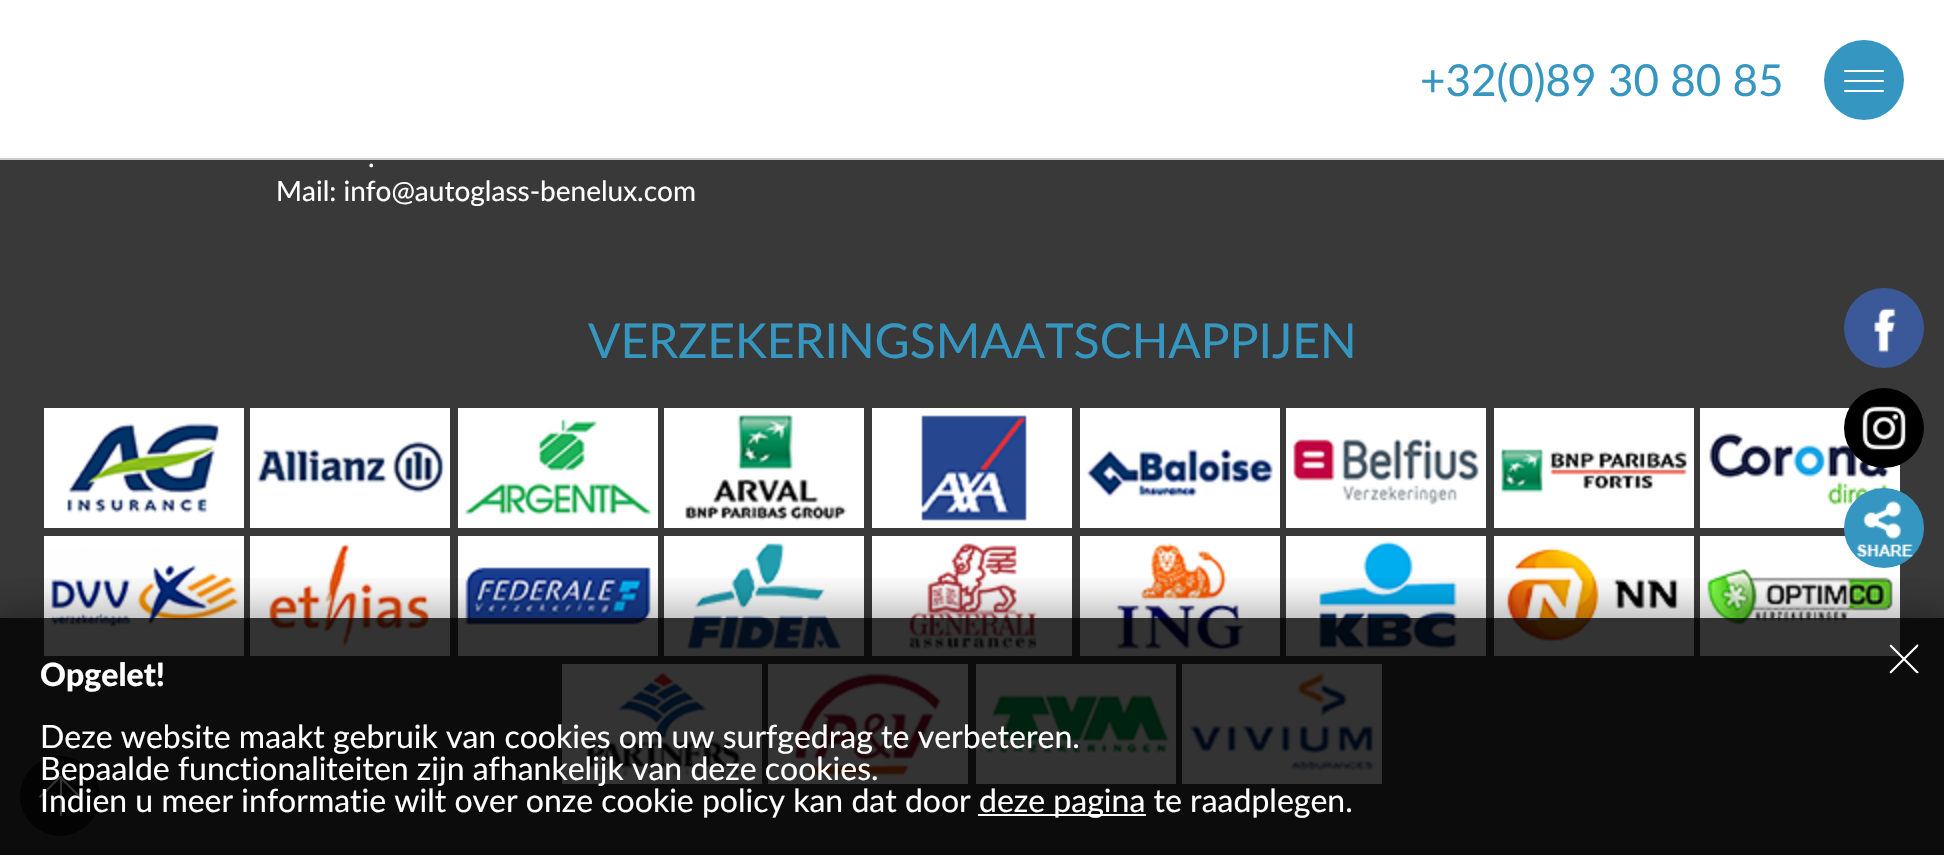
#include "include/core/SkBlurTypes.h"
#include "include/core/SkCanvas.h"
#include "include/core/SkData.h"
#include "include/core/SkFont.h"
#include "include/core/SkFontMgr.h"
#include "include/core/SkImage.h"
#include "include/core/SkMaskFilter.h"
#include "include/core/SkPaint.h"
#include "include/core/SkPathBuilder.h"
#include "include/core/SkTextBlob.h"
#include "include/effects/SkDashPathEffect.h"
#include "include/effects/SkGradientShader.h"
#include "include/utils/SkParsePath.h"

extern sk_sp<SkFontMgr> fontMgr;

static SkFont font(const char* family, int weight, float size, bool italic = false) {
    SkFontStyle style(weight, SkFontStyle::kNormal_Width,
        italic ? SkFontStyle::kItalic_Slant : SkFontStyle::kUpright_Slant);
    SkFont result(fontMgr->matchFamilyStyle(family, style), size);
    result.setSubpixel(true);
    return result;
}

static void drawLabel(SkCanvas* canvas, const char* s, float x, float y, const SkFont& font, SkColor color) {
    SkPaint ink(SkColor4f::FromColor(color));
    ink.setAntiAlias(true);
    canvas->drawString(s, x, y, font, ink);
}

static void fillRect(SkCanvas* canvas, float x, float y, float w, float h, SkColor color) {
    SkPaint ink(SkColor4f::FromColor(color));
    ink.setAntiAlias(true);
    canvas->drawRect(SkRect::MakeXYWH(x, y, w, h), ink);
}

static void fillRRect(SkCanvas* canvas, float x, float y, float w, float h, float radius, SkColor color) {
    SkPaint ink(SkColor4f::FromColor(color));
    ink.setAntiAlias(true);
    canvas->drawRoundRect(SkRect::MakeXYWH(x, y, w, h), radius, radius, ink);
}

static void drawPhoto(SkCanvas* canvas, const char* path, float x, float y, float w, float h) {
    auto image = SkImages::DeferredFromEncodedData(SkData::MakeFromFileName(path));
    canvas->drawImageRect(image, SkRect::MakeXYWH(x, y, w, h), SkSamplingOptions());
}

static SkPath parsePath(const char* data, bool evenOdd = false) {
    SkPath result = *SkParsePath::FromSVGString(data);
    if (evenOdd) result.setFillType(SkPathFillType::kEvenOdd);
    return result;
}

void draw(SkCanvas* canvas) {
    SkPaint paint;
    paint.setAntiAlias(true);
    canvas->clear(0xFF393939);
    fillRect(canvas, 0, 0, 1944, 158, 0xFFFFFFFF);
    fillRect(canvas, 0, 158, 1944, 2, 0xFFCCCCCC);
    SkFont font1 = font("Lato", 400, 44);
    drawLabel(canvas, "+32(0)89 30 80 85", 1420, 96, font1, 0xFF3597C1);
    paint.setColor(0xFF3597C1);
    canvas->drawCircle(1864, 80, 40, paint);
    fillRRect(canvas, 1844, 80, 40, 2, 1, 0xFFFFFFFF);
    fillRRect(canvas, 1844, 70, 40, 2, 1, 0xFFFFFFFF);
    fillRRect(canvas, 1844, 90, 40, 2, 1, 0xFFFFFFFF);
    SkFont font2 = font("Lato", 400, 28);
    drawLabel(canvas, ".", 368, 167, font2, 0xFFFFFFFF);
    drawLabel(canvas, "Mail: info@autoglass-benelux.com", 276, 201, font2, 0xFFFFFFFF);
    SkFont font3 = font("Lato", 400, 48);
    drawLabel(canvas, "VERZEKERINGSMAATSCHAPPIJEN", 588, 358, font3, 0xFF3597C1);
    drawPhoto(canvas, "assets/img1.png", 44, 408, 200, 120);
    drawPhoto(canvas, "assets/img2.png", 250, 408, 200, 120);
    drawPhoto(canvas, "assets/img3.png", 458, 408, 200, 120);
    drawPhoto(canvas, "assets/img4.png", 664, 408, 200, 120);
    drawPhoto(canvas, "assets/img5.png", 872, 408, 200, 120);
    drawPhoto(canvas, "assets/img6.png", 1080, 408, 200, 120);
    drawPhoto(canvas, "assets/img7.png", 1286, 408, 200, 120);
    drawPhoto(canvas, "assets/img8.png", 1494, 408, 200, 120);
    drawPhoto(canvas, "assets/img9.png", 1700, 408, 200, 120);
    drawPhoto(canvas, "assets/img10.png", 44, 536, 200, 120);
    drawPhoto(canvas, "assets/img11.png", 250, 536, 200, 120);
    drawPhoto(canvas, "assets/img12.png", 458, 536, 200, 120);
    drawPhoto(canvas, "assets/img13.png", 664, 536, 200, 120);
    drawPhoto(canvas, "assets/img14.png", 872, 536, 200, 120);
    drawPhoto(canvas, "assets/img15.png", 1080, 536, 200, 120);
    drawPhoto(canvas, "assets/img16.png", 1286, 536, 200, 120);
    drawPhoto(canvas, "assets/img17.png", 1494, 536, 200, 120);
    drawPhoto(canvas, "assets/img18.png", 1700, 536, 200, 120);
    drawPhoto(canvas, "assets/img19.png", 562, 664, 200, 120);
    drawPhoto(canvas, "assets/img20.png", 768, 664, 200, 120);
    drawPhoto(canvas, "assets/img21.png", 976, 664, 200, 120);
    drawPhoto(canvas, "assets/img22.png", 1182, 664, 200, 120);
    paint.setColor(0xFF3B5998);
    canvas->drawCircle(1884, 328, 40, paint);
    drawPhoto(canvas, "assets/img23.png", 1874, 308, 22, 45);
    paint.setColor(0xFF000000);
    canvas->drawCircle(1884, 428, 40, paint);
    drawPhoto(canvas, "assets/img24.png", 1862, 406, 44, 44);
    paint.setColor(0xFF3597C1);
    canvas->drawCircle(1884, 528, 40, paint);
    drawPhoto(canvas, "assets/img25.png", 1856, 500, 57, 57);
    paint.setColor(0xFF0B0B0B);
    canvas->drawCircle(60, 796, 40, paint);
    fillRRect(canvas, 60, 776, 2, 40, 1, 0xFFFFFFFF);
    paint.setColor(0xFFFFFFFF);
    canvas->drawPath(parsePath("M59.5 776.5L60.5 776L81 796.5L80.5 797.5L79.5 798L59 777.5Z"), paint);
    canvas->drawPath(parsePath("M60.5 776.5L61 777.5L40.5 798L39.5 797.5L39 796.5L59.5 776Z"), paint);
    canvas->save();
    canvas->clipRect(SkRect::MakeXYWH(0, 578, 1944, 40));
    paint.setColor(0x4F000000);
    paint.setMaskFilter(SkMaskFilter::MakeBlur(kNormal_SkBlurStyle, 20));
    canvas->drawRect(SkRect::MakeXYWH(-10, 608, 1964, 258), paint);
    paint.setMaskFilter(nullptr);
    canvas->restore();
    fillRect(canvas, 0, 618, 1944, 237, 0xCC000000);
    paint.setColor(0xFFFFFFFF);
    canvas->drawPath(parsePath("M1890 671.5L1917 644.5H1918C1919.5 646 1916 648.5 1913.5 651L1891.5 673C1890.5 674 1889 672.5 1890 671.5Z"), paint);
    canvas->drawPath(parsePath("M1891.5 645L1918.5 672V673C1917 674.5 1914.5 671 1912 668.5L1890 646.5C1889 645.5 1890.5 644 1891.5 645Z"), paint);
    SkFont font4 = font("Lato", 900, 32);
    drawLabel(canvas, "Opgelet!", 40, 686, font4, 0xFFFFFFFF);
    SkFont font5 = font("Lato", 400, 32);
    drawLabel(canvas, "Deze website maakt gebruik van cookies om uw surfgedrag te verbeteren.", 40, 748, font5, 0xFFFFFFFF);
    drawLabel(canvas, "Bepaalde functionaliteiten zijn afhankelijk van deze cookies.", 40, 780, font5, 0xFFFFFFFF);
    drawLabel(canvas, "Indien u meer informatie wilt over onze cookie policy kan dat door", 40, 812, font5, 0xFFFFFFFF);
    fillRect(canvas, 978, 814, 168, 2, 0xFFFFFFFF);
    drawLabel(canvas, "deze pagina te raadplegen.", 979, 812, font5, 0xFFFFFFFF);
}
